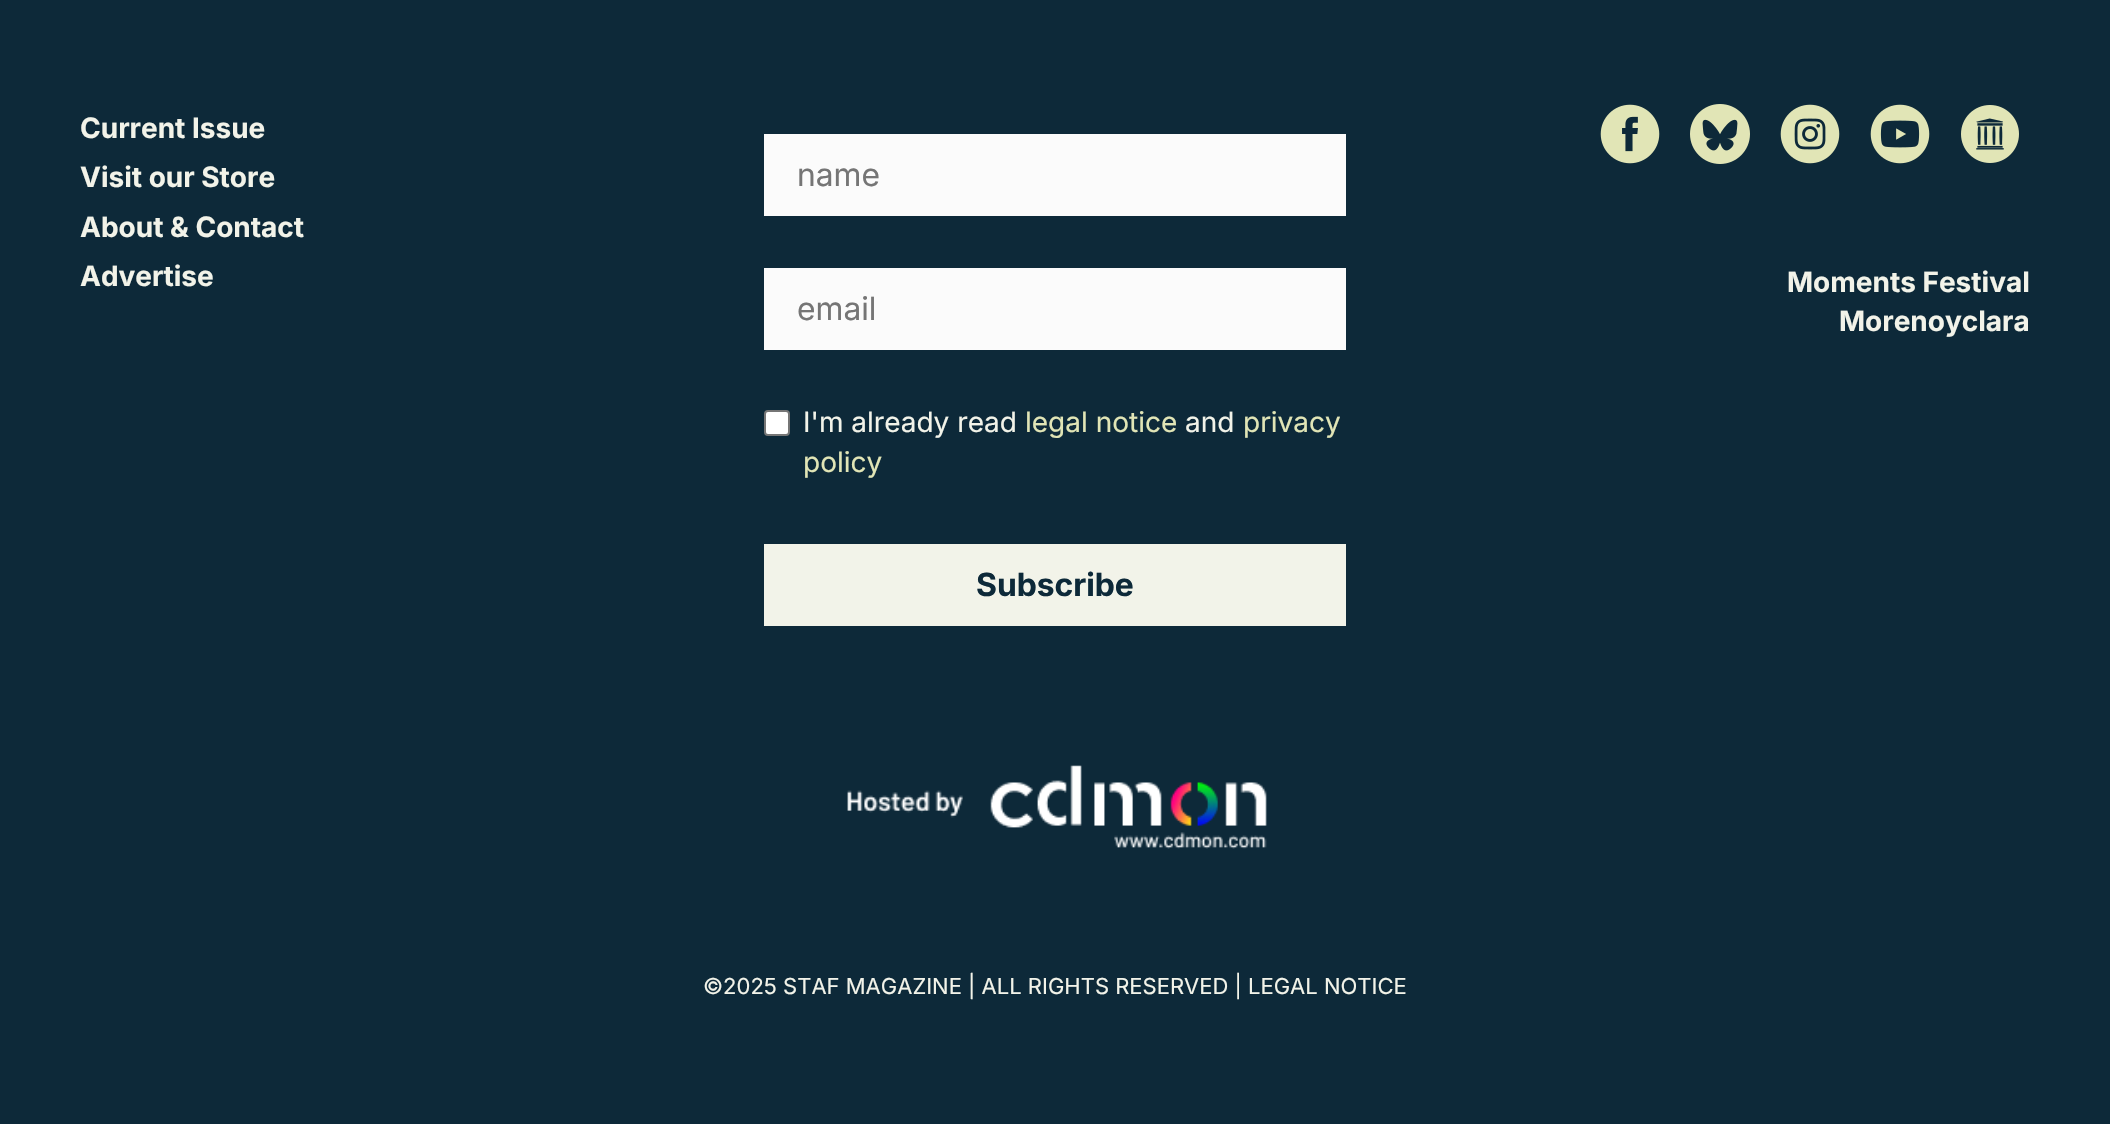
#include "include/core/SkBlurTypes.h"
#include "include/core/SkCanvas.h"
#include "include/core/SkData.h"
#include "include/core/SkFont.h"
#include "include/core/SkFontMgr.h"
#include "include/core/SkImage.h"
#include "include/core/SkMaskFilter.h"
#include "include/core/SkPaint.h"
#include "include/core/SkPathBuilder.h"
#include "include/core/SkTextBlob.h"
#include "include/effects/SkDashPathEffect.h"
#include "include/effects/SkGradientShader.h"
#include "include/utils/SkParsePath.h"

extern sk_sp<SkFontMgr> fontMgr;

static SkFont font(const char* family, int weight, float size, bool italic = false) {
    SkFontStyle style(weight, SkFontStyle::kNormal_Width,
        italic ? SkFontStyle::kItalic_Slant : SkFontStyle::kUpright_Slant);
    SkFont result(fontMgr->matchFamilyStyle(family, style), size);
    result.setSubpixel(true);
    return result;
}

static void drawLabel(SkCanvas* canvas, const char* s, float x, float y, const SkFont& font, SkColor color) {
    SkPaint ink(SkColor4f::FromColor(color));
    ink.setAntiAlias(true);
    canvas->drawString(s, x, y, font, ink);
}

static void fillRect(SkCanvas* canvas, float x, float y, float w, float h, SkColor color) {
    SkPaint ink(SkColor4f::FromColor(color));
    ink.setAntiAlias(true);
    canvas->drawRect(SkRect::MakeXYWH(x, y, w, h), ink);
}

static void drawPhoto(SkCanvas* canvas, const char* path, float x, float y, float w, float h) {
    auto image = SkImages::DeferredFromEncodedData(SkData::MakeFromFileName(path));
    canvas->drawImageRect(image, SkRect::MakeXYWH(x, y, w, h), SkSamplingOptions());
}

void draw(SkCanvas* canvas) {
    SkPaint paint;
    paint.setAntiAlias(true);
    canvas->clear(0xFF0D2939);
    SkFont font1 = font("Inter", 700, 28);
    drawLabel(canvas, "Current Issue", 80, 138, font1, 0xFFF2F3E9);
    drawLabel(canvas, "Visit our Store", 80, 187, font1, 0xFFF2F3E9);
    drawLabel(canvas, "About & Contact", 80, 237, font1, 0xFFF2F3E9);
    drawLabel(canvas, "Advertise", 80, 286, font1, 0xFFF2F3E9);
    fillRect(canvas, 764, 134, 582, 82, 0xFFFBFBFB);
    SkFont font2 = font("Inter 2", 400, 32);
    drawLabel(canvas, "name", 797, 186, font2, 0xFF757575);
    fillRect(canvas, 764, 268, 582, 82, 0xFFFBFBFB);
    drawLabel(canvas, "email", 797, 320, font2, 0xFF757575);
    paint.setColor(0xFFFFFFFF);
    canvas->drawRoundRect(SkRect::MakeXYWH(765, 411, 24, 24), 3, 3, paint);
    paint.setStroke(true);
    paint.setStrokeWidth(2);
    paint.setColor(0xFF767676);
    canvas->drawRoundRect(SkRect::MakeXYWH(765, 411, 24, 24), 3, 3, paint);
    SkFont font3 = font("Inter", 400, 28);
    drawLabel(canvas, "I'm already read", 803, 432, font3, 0xFFF2F3E9);
    drawLabel(canvas, "legal notice", 1025, 432, font3, 0xFFE1E5B6);
    drawLabel(canvas, "and", 1185, 432, font3, 0xFFF2F3E9);
    drawLabel(canvas, "privacy", 1243, 432, font3, 0xFFE1E5B6);
    drawLabel(canvas, "policy", 803, 472, font3, 0xFFE1E5B6);
    fillRect(canvas, 764, 544, 582, 82, 0xFFF2F3E9);
    SkFont font4 = font("Inter 2", 700, 32);
    drawLabel(canvas, "Subscribe", 976, 596, font4, 0xFF0D2939);
    drawPhoto(canvas, "assets/img1.png", 1600, 104, 60, 60);
    drawPhoto(canvas, "assets/img2.png", 1690, 104, 60, 60);
    drawPhoto(canvas, "assets/img3.png", 1780, 104, 60, 60);
    drawPhoto(canvas, "assets/img4.png", 1870, 104, 60, 60);
    drawPhoto(canvas, "assets/img5.png", 1961, 105, 58, 58);
    drawLabel(canvas, "Moments Festival", 1787, 292, font1, 0xFFF2F3E9);
    drawLabel(canvas, "Morenoyclara", 1839, 331, font1, 0xFFF2F3E9);
    drawPhoto(canvas, "assets/img6.png", 847, 765, 420, 84);
    SkFont font5 = font("Inter", 400, 22);
    drawLabel(canvas, "©2025 STAF MAGAZINE | ALL RIGHTS RESERVED | LEGAL NOTICE", 703, 994, font5, 0xFFF2F3E9);
}
